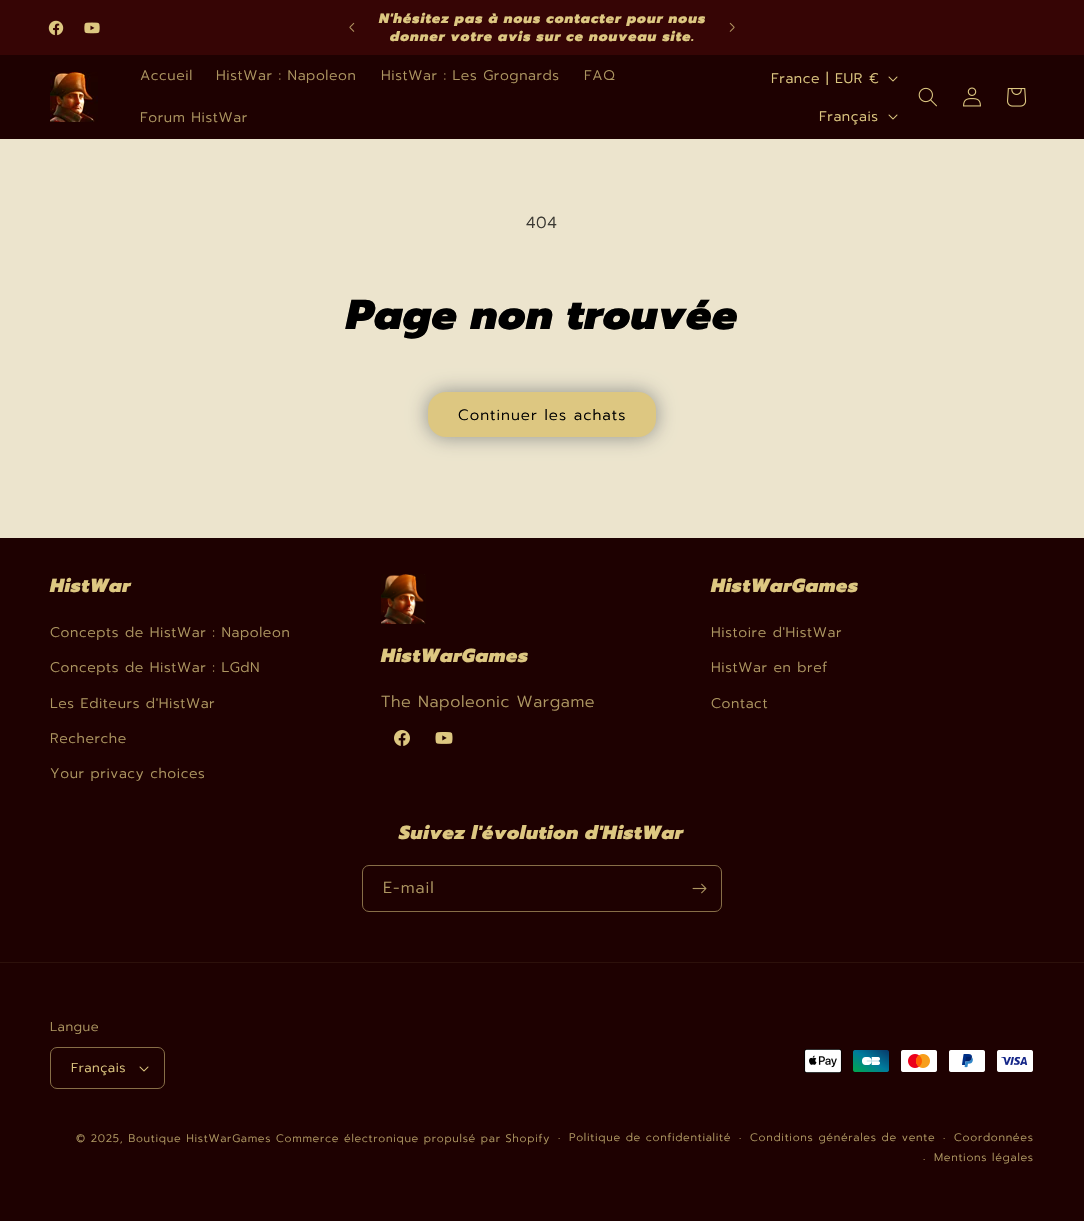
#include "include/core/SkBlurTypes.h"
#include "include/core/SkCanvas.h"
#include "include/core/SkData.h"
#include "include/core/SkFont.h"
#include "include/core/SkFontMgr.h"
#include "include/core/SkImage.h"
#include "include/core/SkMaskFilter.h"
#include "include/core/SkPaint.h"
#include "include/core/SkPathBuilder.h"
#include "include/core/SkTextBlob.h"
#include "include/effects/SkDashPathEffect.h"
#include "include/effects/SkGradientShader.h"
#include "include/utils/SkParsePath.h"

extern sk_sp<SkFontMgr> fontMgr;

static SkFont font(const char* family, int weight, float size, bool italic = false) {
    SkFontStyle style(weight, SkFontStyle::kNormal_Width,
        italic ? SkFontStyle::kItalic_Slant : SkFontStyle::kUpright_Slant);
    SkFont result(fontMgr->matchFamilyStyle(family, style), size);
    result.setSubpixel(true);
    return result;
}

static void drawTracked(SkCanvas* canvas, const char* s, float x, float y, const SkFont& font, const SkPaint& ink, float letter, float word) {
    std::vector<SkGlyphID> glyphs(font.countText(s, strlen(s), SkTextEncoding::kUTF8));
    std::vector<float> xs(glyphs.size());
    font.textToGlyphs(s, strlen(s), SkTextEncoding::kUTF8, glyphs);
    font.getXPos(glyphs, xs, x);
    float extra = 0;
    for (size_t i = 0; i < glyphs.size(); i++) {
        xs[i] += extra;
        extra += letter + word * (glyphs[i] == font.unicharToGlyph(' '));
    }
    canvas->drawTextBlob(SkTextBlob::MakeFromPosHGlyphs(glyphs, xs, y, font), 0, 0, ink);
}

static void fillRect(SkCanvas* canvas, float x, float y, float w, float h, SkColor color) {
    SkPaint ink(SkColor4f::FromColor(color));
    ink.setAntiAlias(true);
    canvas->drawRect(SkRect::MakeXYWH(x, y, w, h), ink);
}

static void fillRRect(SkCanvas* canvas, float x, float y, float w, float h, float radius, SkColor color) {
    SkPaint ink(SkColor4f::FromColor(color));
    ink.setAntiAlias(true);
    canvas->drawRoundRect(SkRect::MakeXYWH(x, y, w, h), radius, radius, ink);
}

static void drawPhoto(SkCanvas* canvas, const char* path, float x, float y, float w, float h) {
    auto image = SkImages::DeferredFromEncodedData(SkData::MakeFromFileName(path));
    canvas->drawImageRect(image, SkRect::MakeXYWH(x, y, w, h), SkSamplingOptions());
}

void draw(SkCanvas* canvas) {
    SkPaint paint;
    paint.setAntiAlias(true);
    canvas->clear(0xFFECE4CD);
    fillRect(canvas, 0, 0, 1084, 55, 0xFF360505);
    drawPhoto(canvas, "assets/img1.png", 48, 20, 16, 16);
    drawPhoto(canvas, "assets/img2.png", 84, 22, 16, 12);
    drawPhoto(canvas, "assets/img3.png", 349, 22, 6, 10);
    SkFont font1 = font("Prompt", 900, 13.65f, true);
    paint.setColor(0xFFDDC781);
    drawTracked(canvas, "N'hésitez pas à nous contacter pour nous", 379, 23, font1, paint, 1, 0);
    drawTracked(canvas, "donner votre avis sur ce nouveau site.", 390, 41, font1, paint, 1, 0);
    drawPhoto(canvas, "assets/img4.png", 729, 22, 6, 10);
    fillRect(canvas, 0, 55, 1084, 84, 0xFF1E0101);
    drawPhoto(canvas, "assets/img5.png", 50, 72, 48, 50);
    SkFont font2 = font("Prompt", 300, 14);
    paint.setColor(0xFFAD9661);
    drawTracked(canvas, "Accueil", 140, 80, font2, paint, 0.6f, 0);
    drawTracked(canvas, "HistWar : Napoleon", 216, 80, font2, paint, 0.6f, 0);
    drawTracked(canvas, "HistWar : Les Grognards", 381, 80, font2, paint, 0.6f, 0);
    drawTracked(canvas, "FAQ", 584, 80, font2, paint, 0.6f, 0);
    drawTracked(canvas, "Forum HistWar", 140, 122, font2, paint, 0.6f, 0);
    paint.setColor(0xFFDDC781);
    drawTracked(canvas, "France | EUR €", 771, 83, font2, paint, 0.6f, 0);
    drawPhoto(canvas, "assets/img6.png", 888, 76, 10, 6);
    drawTracked(canvas, "Français", 819, 121, font2, paint, 0.6f, 0);
    drawPhoto(canvas, "assets/img6.png", 888, 114, 10, 6);
    drawPhoto(canvas, "assets/img7.png", 918, 87, 19, 20);
    drawPhoto(canvas, "assets/img8.png", 963, 87, 18, 20);
    drawPhoto(canvas, "assets/img9.png", 1007, 88, 20, 19);
    SkFont font3 = font("Prompt", 300, 16);
    paint.setColor(0xFF3B3933);
    drawTracked(canvas, "404", 526, 228, font3, paint, 0.6f, 0);
    SkFont font4 = font("Prompt", 900, 42, true);
    paint.setColor(0xFF000000);
    drawTracked(canvas, "Page non trouvée", 346, 329, font4, paint, 0.6f, 0);
    paint.setColor(0x66001128);
    paint.setMaskFilter(SkMaskFilter::MakeBlur(kNormal_SkBlurStyle, 10));
    canvas->drawRoundRect(SkRect::MakeXYWH(428, 392, 228, 45), 18, 18, paint);
    paint.setMaskFilter(nullptr);
    fillRRect(canvas, 428, 392, 228, 45, 18, 0xFFDDC781);
    SkFont font5 = font("Prompt", 300, 15);
    paint.setColor(0xFF000000);
    drawTracked(canvas, "Continuer les achats", 458, 420, font5, paint, 1, 0);
    fillRect(canvas, 0, 538, 1084, 683, 0xFF1E0101);
    SkFont font6 = font("Prompt", 900, 18.9f, true);
    paint.setColor(0xFFDDC781);
    drawTracked(canvas, "HistWar", 50, 592, font6, paint, 0.6f, 0);
    paint.setColor(0xFFAD9661);
    drawTracked(canvas, "Concepts de HistWar : Napoleon", 50, 637, font2, paint, 0.6f, 0);
    drawTracked(canvas, "Concepts de HistWar : LGdN", 50, 672, font2, paint, 0.6f, 0);
    drawTracked(canvas, "Les Editeurs d'HistWar", 50, 708, font2, paint, 0.6f, 0);
    drawTracked(canvas, "Recherche", 50, 743, font2, paint, 0.6f, 0);
    drawTracked(canvas, "Your privacy choices", 50, 778, font2, paint, 0.6f, 0);
    drawPhoto(canvas, "assets/img10.png", 381, 574, 45, 50);
    paint.setColor(0xFFDDC781);
    drawTracked(canvas, "HistWarGames", 381, 662, font6, paint, 0.6f, 0);
    paint.setColor(0xFFAD9661);
    drawTracked(canvas, "The Napoleonic Wargame", 381, 707, font3, paint, 0.6f, 0);
    drawPhoto(canvas, "assets/img11.png", 394, 730, 16, 16);
    drawPhoto(canvas, "assets/img12.png", 435, 732, 18, 12);
    paint.setColor(0xFFDDC781);
    drawTracked(canvas, "HistWarGames", 711, 592, font6, paint, 0.6f, 0);
    paint.setColor(0xFFAD9661);
    drawTracked(canvas, "Histoire d'HistWar", 711, 637, font2, paint, 0.6f, 0);
    drawTracked(canvas, "HistWar en bref", 711, 672, font2, paint, 0.6f, 0);
    drawTracked(canvas, "Contact", 711, 708, font2, paint, 0.6f, 0);
    paint.setColor(0xFFDDC781);
    drawTracked(canvas, "Suivez l'évolution d'HistWar", 399, 839, font6, paint, 0.6f, 0);
    paint.setStroke(true);
    paint.setStrokeWidth(1);
    paint.setColor(0xFF876E47);
    canvas->drawRoundRect(SkRect::MakeXYWH(362.5f, 865.5f, 359, 46), 6.5f, 6.5f, paint);
    paint.setStroke(false);
    paint.setColor(0xFFAD9661);
    drawTracked(canvas, "E-mail", 383, 893, font3, paint, 1, 0);
    drawPhoto(canvas, "assets/img13.png", 692, 883, 15, 11);
    fillRect(canvas, 0, 962, 1084, 1, 0xFF2D110B);
    SkFont font7 = font("Prompt", 300, 13);
    drawTracked(canvas, "Langue", 50, 1031, font7, paint, 0.5f, 0);
    drawPhoto(canvas, "assets/img6.png", 139, 1066, 10, 6);
    paint.setStroke(true);
    paint.setColor(0xFF876E47);
    canvas->drawRoundRect(SkRect::MakeXYWH(50.5f, 1047.5f, 114, 41), 6.5f, 6.5f, paint);
    paint.setStroke(false);
    paint.setColor(0xFFDDC781);
    drawTracked(canvas, "Français", 71, 1072, font7, paint, 0.5f, 0);
    drawPhoto(canvas, "assets/img14.png", 804, 1049, 38, 24);
    drawPhoto(canvas, "assets/img15.png", 853, 1050, 36, 22);
    drawPhoto(canvas, "assets/img16.png", 901, 1050, 36, 22);
    drawPhoto(canvas, "assets/img17.png", 949, 1050, 36, 22);
    drawPhoto(canvas, "assets/img18.png", 997, 1050, 36, 22);
    SkFont font8 = font("Prompt", 300, 11);
    paint.setColor(0xFFAD9661);
    drawTracked(canvas, "© 2025, Boutique HistWarGames", 76, 1142, font8, paint, 0.7f, 0);
    drawTracked(canvas, "Commerce électronique propulsé par Shopify", 276, 1142, font8, paint, 0.7f, 0);
    SkFont font9 = font("Prompt", 300, 12);
    drawTracked(canvas, "·", 558, 1142, font9, paint, 0.7f, 0);
    drawTracked(canvas, "Politique de confidentialité", 569, 1141, font8, paint, 0.7f, 0);
    drawTracked(canvas, "·", 739, 1142, font9, paint, 0.7f, 0);
    drawTracked(canvas, "Conditions générales de vente", 750, 1141, font8, paint, 0.7f, 0);
    drawTracked(canvas, "·", 943, 1142, font9, paint, 0.7f, 0);
    drawTracked(canvas, "Coordonnées", 954, 1141, font8, paint, 0.7f, 0);
    drawTracked(canvas, "·", 923, 1163, font9, paint, 0.7f, 0);
    drawTracked(canvas, "Mentions légales", 934, 1161, font8, paint, 0.7f, 0);
}
